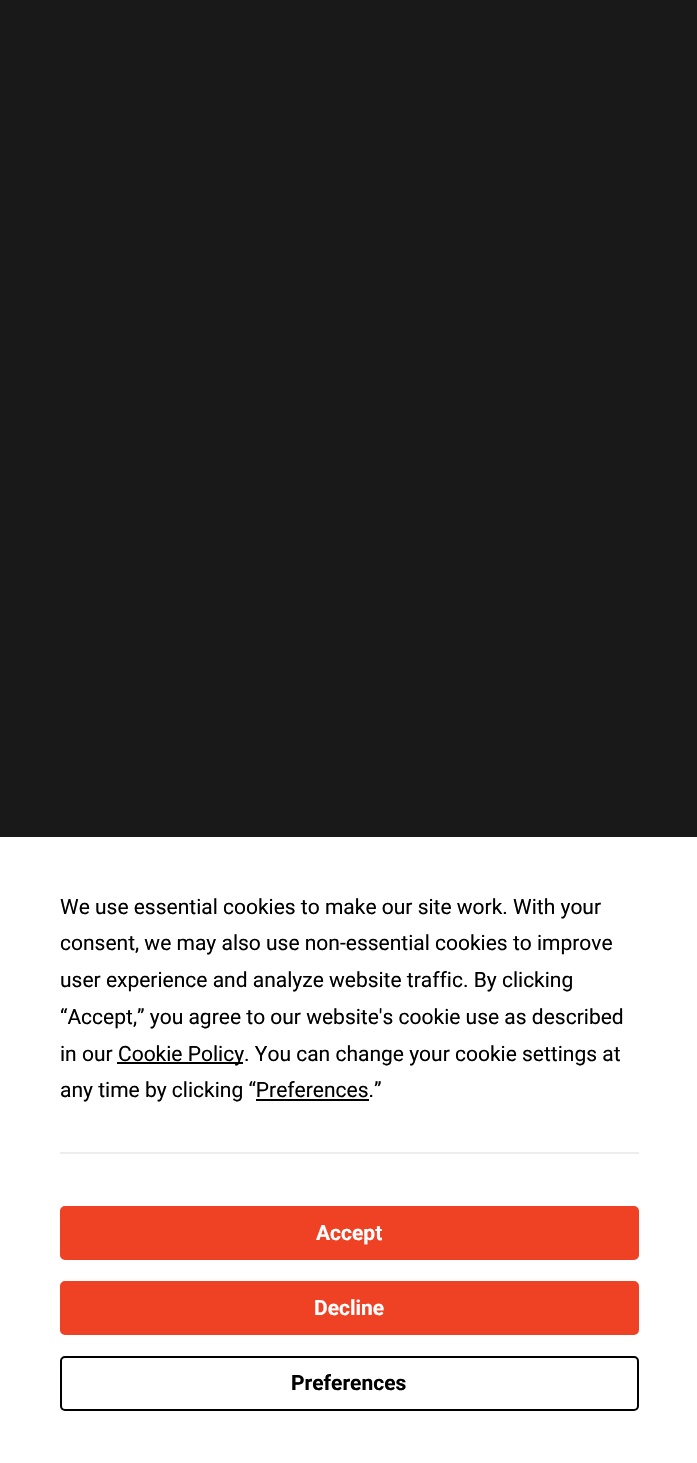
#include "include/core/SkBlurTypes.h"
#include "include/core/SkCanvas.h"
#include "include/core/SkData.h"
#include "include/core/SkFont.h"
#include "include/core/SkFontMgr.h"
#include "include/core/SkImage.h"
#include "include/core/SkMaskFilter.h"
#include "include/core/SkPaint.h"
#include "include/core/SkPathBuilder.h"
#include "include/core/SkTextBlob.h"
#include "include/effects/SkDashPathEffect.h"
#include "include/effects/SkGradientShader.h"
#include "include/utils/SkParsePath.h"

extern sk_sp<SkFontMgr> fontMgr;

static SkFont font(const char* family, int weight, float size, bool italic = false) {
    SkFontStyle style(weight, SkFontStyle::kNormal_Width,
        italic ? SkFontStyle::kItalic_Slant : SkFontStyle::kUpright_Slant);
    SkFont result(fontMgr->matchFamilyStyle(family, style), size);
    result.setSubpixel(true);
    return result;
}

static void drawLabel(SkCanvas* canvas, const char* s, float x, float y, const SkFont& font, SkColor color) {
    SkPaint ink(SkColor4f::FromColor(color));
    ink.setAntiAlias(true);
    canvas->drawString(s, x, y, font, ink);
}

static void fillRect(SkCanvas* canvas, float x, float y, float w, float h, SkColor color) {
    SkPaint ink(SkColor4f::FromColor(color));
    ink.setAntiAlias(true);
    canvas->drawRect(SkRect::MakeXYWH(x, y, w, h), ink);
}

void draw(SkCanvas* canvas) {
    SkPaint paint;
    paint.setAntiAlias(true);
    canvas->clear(0xFF191919);
    fillRect(canvas, 0, 837, 697, 626, 0xFFFFFFFF);
    SkFont font1 = font("Roboto", 400, 21);
    drawLabel(canvas, "We use essential cookies to make our site work. With your", 60, 914, font1, 0xFF000000);
    drawLabel(canvas, "consent, we may also use non-essential cookies to improve", 60, 950, font1, 0xFF000000);
    drawLabel(canvas, "user experience and analyze website traffic. By clicking", 60, 987, font1, 0xFF000000);
    drawLabel(canvas, "“Accept,” you agree to our website's cookie use as described", 60, 1024, font1, 0xFF000000);
    drawLabel(canvas, "in our", 60, 1061, font1, 0xFF000000);
    fillRect(canvas, 117, 1062, 126, 2, 0xFF000000);
    drawLabel(canvas, "Cookie Policy. You can change your cookie settings at", 118, 1061, font1, 0xFF000000);
    drawLabel(canvas, "any time by clicking “Preferences.”", 60, 1097, font1, 0xFF000000);
    fillRect(canvas, 256, 1099, 113, 2, 0xFF000000);
    fillRect(canvas, 60, 1152, 579, 2, 0xFFEDEDEF);
    paint.setColor(0xFFEF4123);
    canvas->drawRoundRect(SkRect::MakeXYWH(61, 1207, 577, 52), 4, 4, paint);
    paint.setStroke(true);
    paint.setStrokeWidth(2);
    canvas->drawRoundRect(SkRect::MakeXYWH(61, 1207, 577, 52), 4, 4, paint);
    SkFont font2 = font("Roboto", 700, 21);
    drawLabel(canvas, "Accept", 316, 1240, font2, 0xFFFFFFFF);
    paint.setStroke(false);
    canvas->drawRoundRect(SkRect::MakeXYWH(61, 1282, 577, 52), 4, 4, paint);
    paint.setStroke(true);
    canvas->drawRoundRect(SkRect::MakeXYWH(61, 1282, 577, 52), 4, 4, paint);
    drawLabel(canvas, "Decline", 314, 1315, font2, 0xFFFFFFFF);
    paint.setColor(0xFF000000);
    canvas->drawRoundRect(SkRect::MakeXYWH(61, 1357, 577, 53), 4, 4, paint);
    drawLabel(canvas, "Preferences", 291, 1390, font2, 0xFF000000);
}
